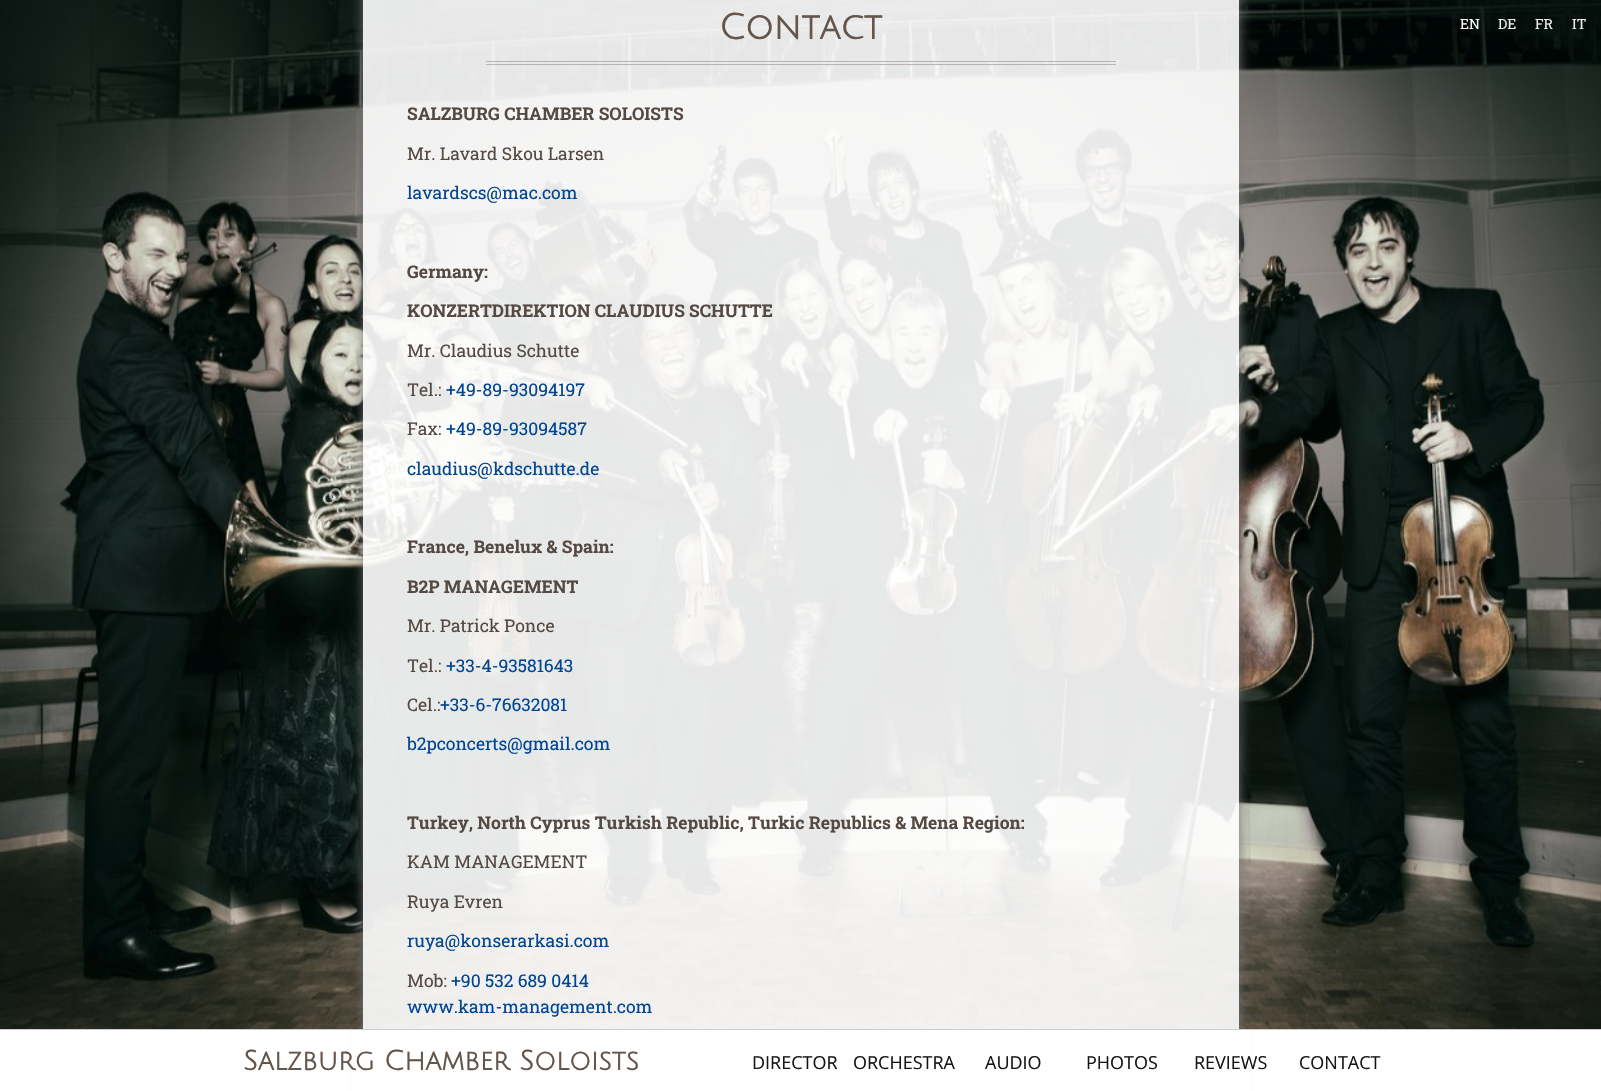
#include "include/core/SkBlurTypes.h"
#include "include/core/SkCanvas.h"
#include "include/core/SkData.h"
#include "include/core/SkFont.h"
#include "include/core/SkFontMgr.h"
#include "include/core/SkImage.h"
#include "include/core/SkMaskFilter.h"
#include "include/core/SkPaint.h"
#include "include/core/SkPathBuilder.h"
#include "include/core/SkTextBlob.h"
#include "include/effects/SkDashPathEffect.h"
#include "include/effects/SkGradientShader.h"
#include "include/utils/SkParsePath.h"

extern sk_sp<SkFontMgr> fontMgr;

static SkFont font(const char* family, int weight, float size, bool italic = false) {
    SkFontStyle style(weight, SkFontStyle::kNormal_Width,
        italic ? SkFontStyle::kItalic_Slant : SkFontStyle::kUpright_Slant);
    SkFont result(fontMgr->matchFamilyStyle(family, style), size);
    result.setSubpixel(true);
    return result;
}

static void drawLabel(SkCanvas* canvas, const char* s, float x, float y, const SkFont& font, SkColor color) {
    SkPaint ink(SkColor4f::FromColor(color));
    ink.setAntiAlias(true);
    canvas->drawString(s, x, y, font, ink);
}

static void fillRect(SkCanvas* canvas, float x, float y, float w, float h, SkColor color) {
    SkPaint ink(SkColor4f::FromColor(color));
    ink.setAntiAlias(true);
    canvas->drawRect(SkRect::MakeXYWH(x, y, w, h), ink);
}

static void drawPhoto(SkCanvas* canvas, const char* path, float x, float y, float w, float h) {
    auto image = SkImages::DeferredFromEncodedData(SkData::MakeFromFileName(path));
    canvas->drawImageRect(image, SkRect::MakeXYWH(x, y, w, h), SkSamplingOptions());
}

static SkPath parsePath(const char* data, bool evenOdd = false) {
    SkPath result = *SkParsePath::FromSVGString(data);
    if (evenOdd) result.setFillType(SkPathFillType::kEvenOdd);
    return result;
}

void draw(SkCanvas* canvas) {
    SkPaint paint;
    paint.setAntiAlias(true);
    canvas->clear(0xFFFFFFFF);
    drawPhoto(canvas, "assets/img1.png", 0, 0, 1601, 1029);
    canvas->save();
    canvas->clipPath(parsePath("M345 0H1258V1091H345ZM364-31H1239V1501H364Z", true), true);
    paint.setColor(0xFF777777);
    paint.setMaskFilter(SkMaskFilter::MakeBlur(kNormal_SkBlurStyle, 6));
    canvas->drawRect(SkRect::MakeXYWH(364, -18, 875, 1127), paint);
    paint.setMaskFilter(nullptr);
    canvas->restore();
    fillRect(canvas, 363, 0, 876, 1029, 0xE6FFFFFF);
    fillRect(canvas, 486, 61, 630, 1, 0xFFBAB4B1);
    fillRect(canvas, 486, 64, 630, 1, 0xFFBAB4B1);
    SkFont font1 = font("Julius Sans One", 700, 35);
    drawLabel(canvas, "Contact", 719, 39, font1, 0xFF64554D);
    SkFont font2 = font("Roboto Slab", 700, 17.5f);
    drawLabel(canvas, "SALZBURG CHAMBER SOLOISTS", 407, 120, font2, 0xFF544943);
    SkFont font3 = font("Roboto Slab", 400, 17.5f);
    drawLabel(canvas, "Mr. Lavard Skou Larsen", 407, 160, font3, 0xFF544943);
    drawLabel(canvas, "lavardscs@mac.com", 407, 199, font3, 0xFF014692);
    drawLabel(canvas, "Germany:", 407, 278, font2, 0xFF544943);
    drawLabel(canvas, "KONZERTDIREKTION CLAUDIUS SCHUTTE", 407, 317, font2, 0xFF544943);
    drawLabel(canvas, "Mr. Claudius Schutte", 407, 357, font3, 0xFF544943);
    drawLabel(canvas, "Tel.:", 407, 396, font3, 0xFF544943);
    drawLabel(canvas, "+49-89-93094197", 446, 396, font3, 0xFF014692);
    drawLabel(canvas, "Fax:", 407, 435, font3, 0xFF544943);
    drawLabel(canvas, "+49-89-93094587", 446, 435, font3, 0xFF014692);
    drawLabel(canvas, "claudius@kdschutte.de", 407, 475, font3, 0xFF014692);
    drawLabel(canvas, "France, Benelux & Spain:", 407, 553, font2, 0xFF544943);
    drawLabel(canvas, "B2P MANAGEMENT", 407, 593, font2, 0xFF544943);
    drawLabel(canvas, "Mr. Patrick Ponce", 407, 632, font3, 0xFF544943);
    drawLabel(canvas, "Tel.:", 407, 672, font3, 0xFF544943);
    drawLabel(canvas, "+33-4-93581643", 446, 672, font3, 0xFF014692);
    drawLabel(canvas, "Cel.:", 407, 711, font3, 0xFF544943);
    drawLabel(canvas, "+33-6-76632081", 440, 711, font3, 0xFF014692);
    drawLabel(canvas, "b2pconcerts@gmail.com", 407, 750, font3, 0xFF014692);
    drawLabel(canvas, "Turkey, North Cyprus Turkish Republic, Turkic Republics & Mena Region:", 407, 829, font2, 0xFF544943);
    drawLabel(canvas, "KAM MANAGEMENT", 407, 868, font3, 0xFF544943);
    drawLabel(canvas, "Ruya Evren", 407, 908, font3, 0xFF544943);
    drawLabel(canvas, "ruya@konserarkasi.com", 407, 947, font3, 0xFF014692);
    drawLabel(canvas, "Mob:", 407, 987, font3, 0xFF544943);
    drawLabel(canvas, "+90 532 689 0414", 451, 987, font3, 0xFF014692);
    drawLabel(canvas, "www.kam-management.com", 407, 1013, font3, 0xFF014692);
    fillRect(canvas, 352, 1030, 899, 61, 0xFFFFFFFF);
    fillRect(canvas, 0, 1029, 1601, 1, 0xFFCCCCCC);
    SkFont font4 = font("Julius Sans One", 700, 27);
    drawLabel(canvas, "Salzburg Chamber Soloists", 243, 1070, font4, 0xFF64554D);
    SkFont font5 = font("Roboto Slab", 400, 14);
    drawLabel(canvas, "EN", 1460, 29, font5, 0xFFF8F8F8);
    drawLabel(canvas, "DE", 1498, 29, font5, 0xFFEEEEEE);
    drawLabel(canvas, "FR", 1535, 29, font5, 0xFFEEEEEE);
    drawLabel(canvas, "IT", 1572, 29, font5, 0xFFEEEEEE);
    SkFont font6 = font("Open Sans", 400, 18);
    drawLabel(canvas, "DIRECTOR", 752, 1069, font6, 0xFF151515);
    drawLabel(canvas, "ORCHESTRA", 853, 1069, font6, 0xFF151515);
    drawLabel(canvas, "AUDIO", 985, 1069, font6, 0xFF151515);
    drawLabel(canvas, "PHOTOS", 1086, 1069, font6, 0xFF151515);
    drawLabel(canvas, "REVIEWS", 1194, 1069, font6, 0xFF151515);
    drawLabel(canvas, "CONTACT", 1299, 1069, font6, 0xFF151515);
}
